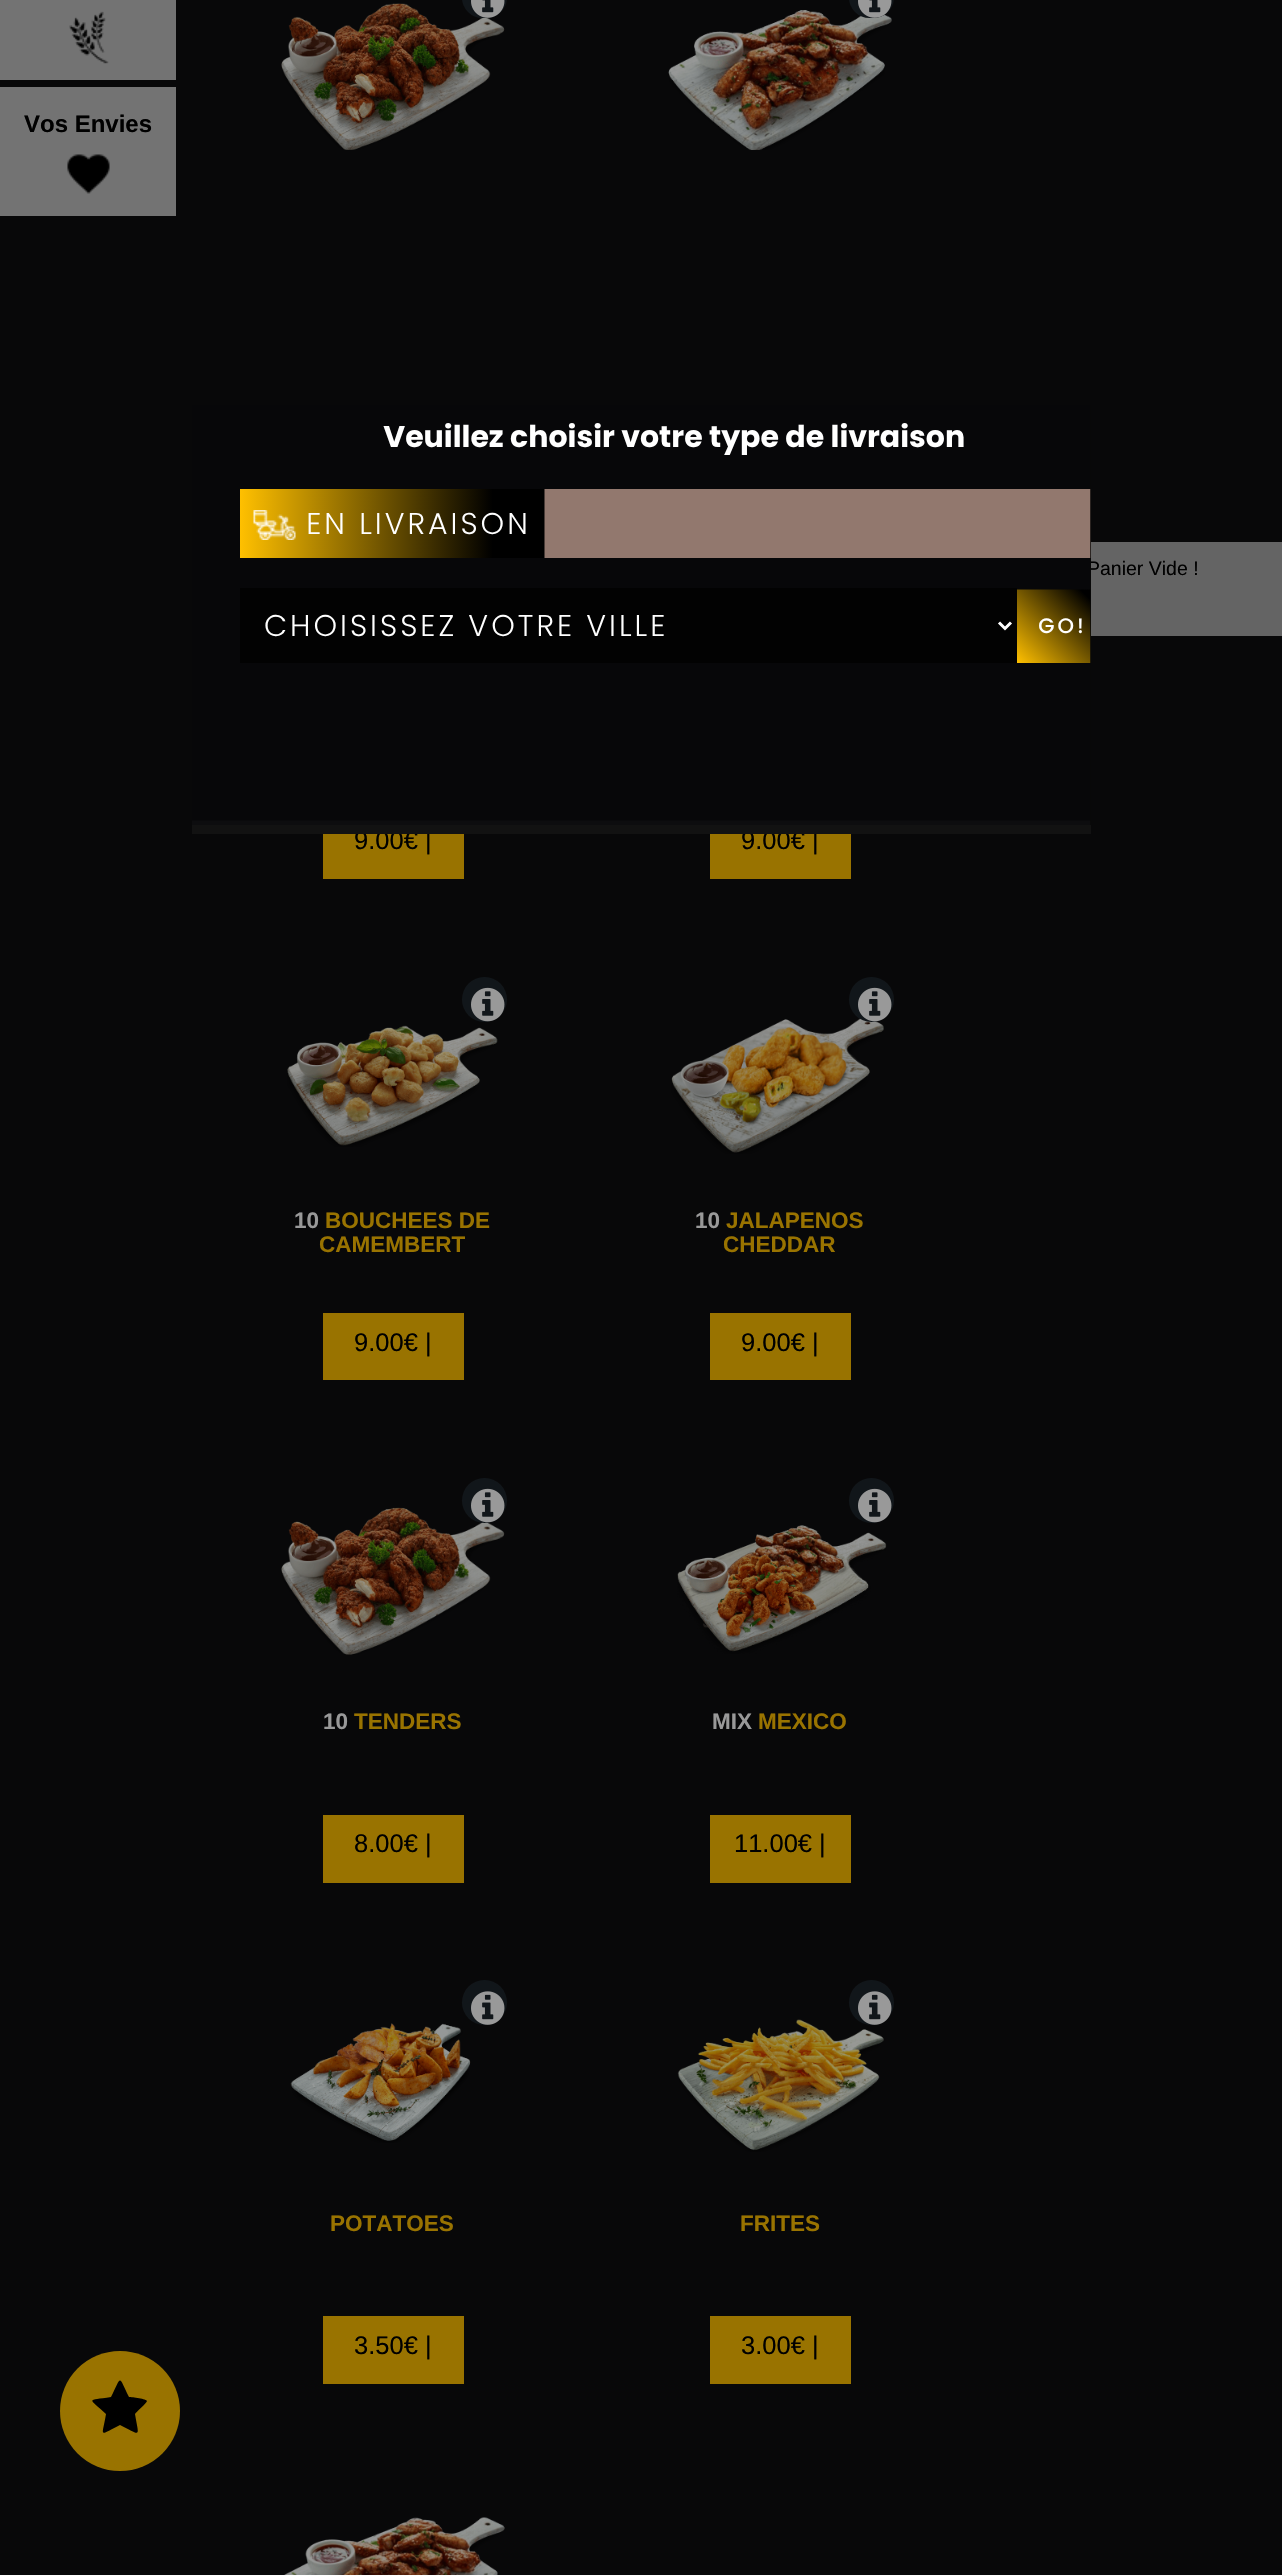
#include "include/core/SkBlurTypes.h"
#include "include/core/SkCanvas.h"
#include "include/core/SkData.h"
#include "include/core/SkFont.h"
#include "include/core/SkFontMgr.h"
#include "include/core/SkImage.h"
#include "include/core/SkMaskFilter.h"
#include "include/core/SkPaint.h"
#include "include/core/SkPathBuilder.h"
#include "include/core/SkTextBlob.h"
#include "include/effects/SkDashPathEffect.h"
#include "include/effects/SkGradientShader.h"
#include "include/utils/SkParsePath.h"

extern sk_sp<SkFontMgr> fontMgr;

static SkFont font(const char* family, int weight, float size, bool italic = false) {
    SkFontStyle style(weight, SkFontStyle::kNormal_Width,
        italic ? SkFontStyle::kItalic_Slant : SkFontStyle::kUpright_Slant);
    SkFont result(fontMgr->matchFamilyStyle(family, style), size);
    result.setSubpixel(true);
    return result;
}

static void drawLabel(SkCanvas* canvas, const char* s, float x, float y, const SkFont& font, SkColor color) {
    SkPaint ink(SkColor4f::FromColor(color));
    ink.setAntiAlias(true);
    canvas->drawString(s, x, y, font, ink);
}

static void fillRect(SkCanvas* canvas, float x, float y, float w, float h, SkColor color) {
    SkPaint ink(SkColor4f::FromColor(color));
    ink.setAntiAlias(true);
    canvas->drawRect(SkRect::MakeXYWH(x, y, w, h), ink);
}

static void fillRRect(SkCanvas* canvas, float x, float y, float w, float h, float radius, SkColor color) {
    SkPaint ink(SkColor4f::FromColor(color));
    ink.setAntiAlias(true);
    canvas->drawRoundRect(SkRect::MakeXYWH(x, y, w, h), radius, radius, ink);
}

static void drawPhoto(SkCanvas* canvas, const char* path, float x, float y, float w, float h) {
    auto image = SkImages::DeferredFromEncodedData(SkData::MakeFromFileName(path));
    canvas->drawImageRect(image, SkRect::MakeXYWH(x, y, w, h), SkSamplingOptions());
}

static SkPath parsePath(const char* data, bool evenOdd = false) {
    SkPath result = *SkParsePath::FromSVGString(data);
    if (evenOdd) result.setFillType(SkPathFillType::kEvenOdd);
    return result;
}

void draw(SkCanvas* canvas) {
    SkPaint paint;
    paint.setAntiAlias(true);
    canvas->clear(0xFF080809);
    fillRect(canvas, 0, 0, 176, 80, 0xFF737373);
    drawPhoto(canvas, "assets/img1.png", 69, 11, 40, 53);
    fillRect(canvas, 0, 87, 176, 129, 0xFF737373);
    SkFont font1 = font("Liberation Sans", 700, 24);
    drawLabel(canvas, "Vos Envies", 24, 132, font1, 0xFF000000);
    drawPhoto(canvas, "assets/img2.png", 67, 154, 43, 40);
    fillRect(canvas, 1091, 542, 191, 94, 0xFF646464);
    SkFont font2 = font("Liberation Sans", 400, 19.5f);
    drawLabel(canvas, "Panier Vide !", 1087, 575, font2, 0xFF000000);
    drawPhoto(canvas, "assets/img4.png", 281, 3, 224, 147);
    fillRRect(canvas, 462, -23, 45, 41, 22.5f, 0xFF11161A);
    drawPhoto(canvas, "assets/img3.png", 471, 0, 34, 18);
    drawPhoto(canvas, "assets/img6.png", 668, 10, 224, 140);
    fillRRect(canvas, 849, -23, 45, 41, 22.5f, 0xFF11161A);
    drawPhoto(canvas, "assets/img5.png", 858, 0, 34, 18);
    fillRect(canvas, 323, 834, 141, 45, 0xFF997300);
    SkFont font3 = font("Liberation Sans", 400, 25.5f);
    drawLabel(canvas, "9.00€ |", 354, 849, font3, 0xFF000000);
    fillRect(canvas, 710, 834, 141, 45, 0xFF997300);
    drawLabel(canvas, "9.00€ |", 741, 849, font3, 0xFF000000);
    paint.setColor(0xFF11161A);
    canvas->drawCircle(484.5f, 999.5f, 22.5f, paint);
    drawPhoto(canvas, "assets/img7.png", 471, 987, 34, 35);
    drawPhoto(canvas, "assets/img8.png", 287, 1025, 211, 122);
    SkFont font4 = font("Liberation Sans", 700, 22.5f);
    drawLabel(canvas, "10", 294, 1228, font4, 0xFF999999);
    drawLabel(canvas, "BOUCHEES DE", 325, 1228, font4, 0xFF997300);
    drawLabel(canvas, "CAMEMBERT", 319, 1252, font4, 0xFF997300);
    fillRect(canvas, 323, 1313, 141, 67, 0xFF997300);
    drawLabel(canvas, "9.00€ |", 354, 1351, font3, 0xFF000000);
    drawPhoto(canvas, "assets/img10.png", 671, 1018, 213, 136);
    canvas->drawCircle(871.5f, 999.5f, 22.5f, paint);
    drawPhoto(canvas, "assets/img9.png", 858, 987, 34, 35);
    drawLabel(canvas, "10", 695, 1228, font4, 0xFF999999);
    drawLabel(canvas, "JALAPENOS", 726, 1228, font4, 0xFF997300);
    drawLabel(canvas, "CHEDDAR", 723, 1252, font4, 0xFF997300);
    fillRect(canvas, 710, 1313, 141, 67, 0xFF997300);
    drawLabel(canvas, "9.00€ |", 741, 1351, font3, 0xFF000000);
    drawPhoto(canvas, "assets/img12.png", 281, 1507, 224, 148);
    canvas->drawCircle(484.5f, 1500.5f, 22.5f, paint);
    drawPhoto(canvas, "assets/img11.png", 471, 1488, 34, 35);
    drawLabel(canvas, "10", 323, 1729, font4, 0xFF999999);
    drawLabel(canvas, "TENDERS", 354, 1729, font4, 0xFF997300);
    fillRect(canvas, 323, 1815, 141, 68, 0xFF997300);
    drawLabel(canvas, "8.00€ |", 354, 1852, font3, 0xFF000000);
    canvas->drawCircle(871.5f, 1500.5f, 22.5f, paint);
    drawPhoto(canvas, "assets/img7.png", 858, 1488, 34, 35);
    drawPhoto(canvas, "assets/img13.png", 677, 1525, 210, 129);
    drawLabel(canvas, "MIX", 712, 1729, font4, 0xFF999999);
    drawLabel(canvas, "MEXICO", 758, 1729, font4, 0xFF997300);
    fillRect(canvas, 710, 1815, 141, 68, 0xFF997300);
    drawLabel(canvas, "11.00€ |", 734, 1852, font3, 0xFF000000);
    drawPhoto(canvas, "assets/img15.png", 290, 2023, 181, 120);
    canvas->drawCircle(484.5f, 2002.5f, 22.5f, paint);
    drawPhoto(canvas, "assets/img14.png", 471, 1991, 34, 34);
    drawLabel(canvas, "POTATOES", 330, 2231, font4, 0xFF997300);
    fillRect(canvas, 323, 2316, 141, 68, 0xFF997300);
    drawLabel(canvas, "3.50€ |", 354, 2354, font3, 0xFF000000);
    drawPhoto(canvas, "assets/img16.png", 677, 2019, 207, 133);
    canvas->drawCircle(871.5f, 2002.5f, 22.5f, paint);
    drawPhoto(canvas, "assets/img14.png", 858, 1991, 34, 34);
    drawLabel(canvas, "FRITES", 740, 2231, font4, 0xFF997300);
    fillRect(canvas, 710, 2316, 141, 68, 0xFF997300);
    drawLabel(canvas, "3.00€ |", 741, 2354, font3, 0xFF000000);
    paint.setColor(0xFF997300);
    canvas->drawCircle(120, 2411, 60, paint);
    paint.setColor(0xFF000000);
    canvas->drawPath(parsePath("M147 2401C147 2403 136 2412 135 2414C139 2438 142 2436 120 2425C98 2436 102 2438 106 2414C88 2397 86 2401 111 2397C122 2375 118 2375 129 2397C132 2397 147 2399 147 2401Z"), paint);
    drawPhoto(canvas, "assets/img17.png", 284, 2517, 221, 58);
    fillRect(canvas, 192, 825, 899, 9, 0xFF121212);
    drawPhoto(canvas, "assets/img18.png", 192, 150, 899, 675);
}
